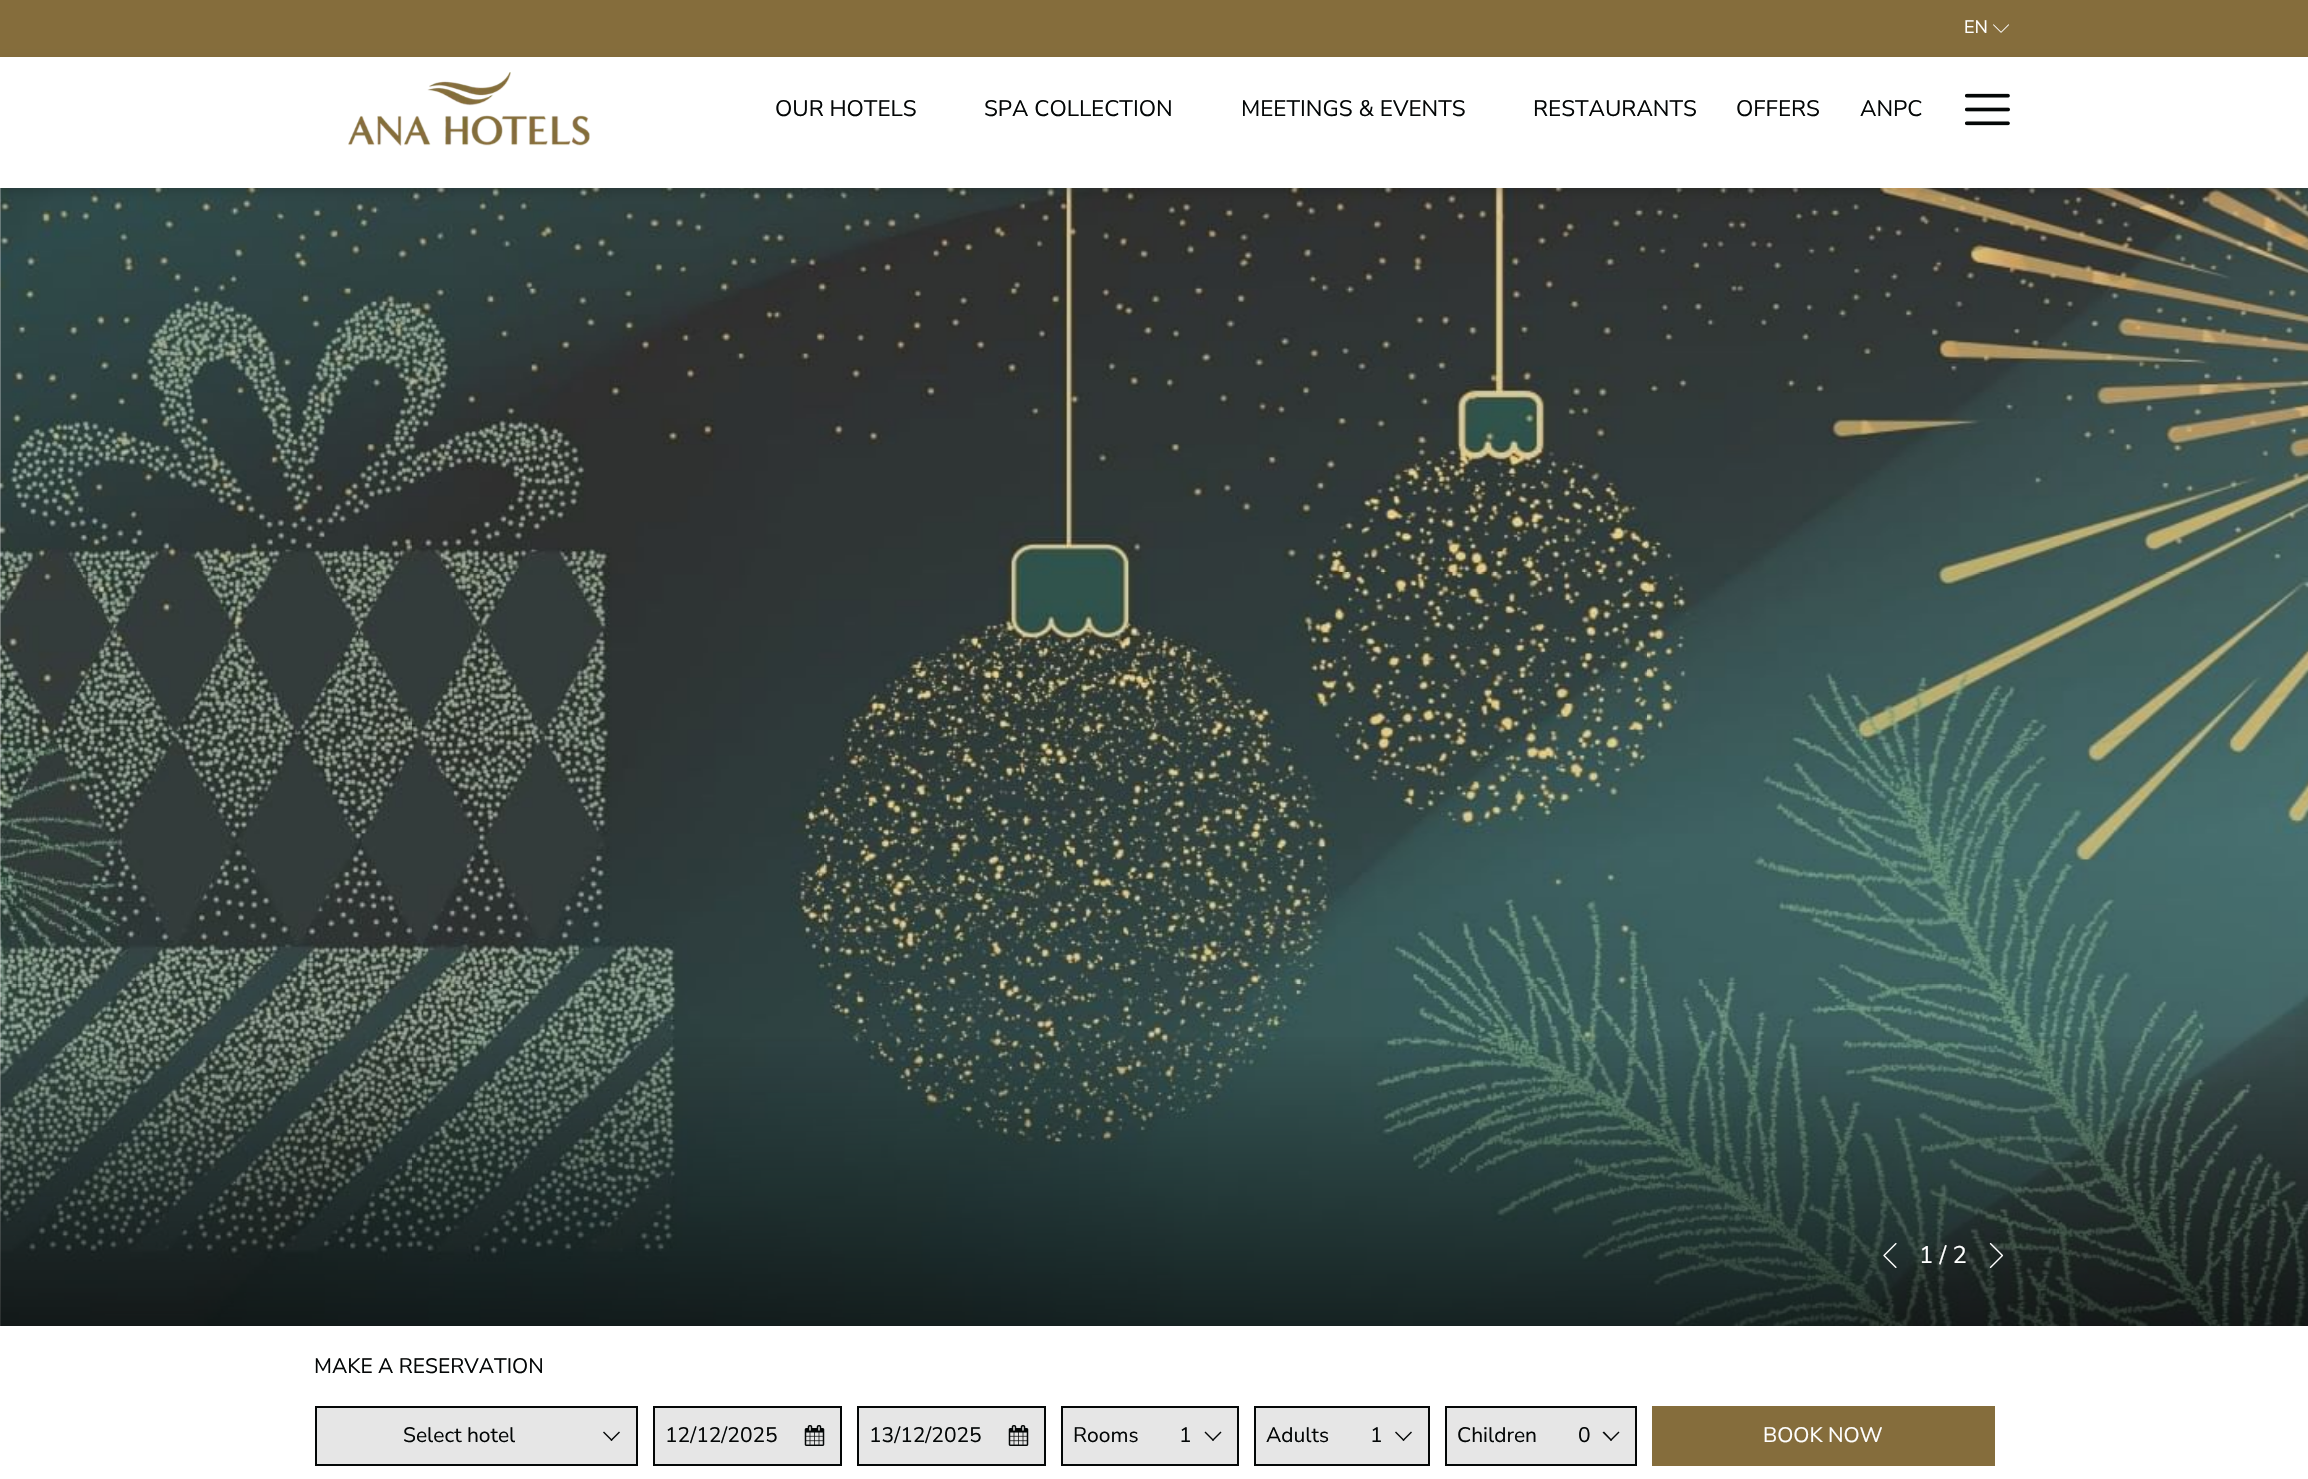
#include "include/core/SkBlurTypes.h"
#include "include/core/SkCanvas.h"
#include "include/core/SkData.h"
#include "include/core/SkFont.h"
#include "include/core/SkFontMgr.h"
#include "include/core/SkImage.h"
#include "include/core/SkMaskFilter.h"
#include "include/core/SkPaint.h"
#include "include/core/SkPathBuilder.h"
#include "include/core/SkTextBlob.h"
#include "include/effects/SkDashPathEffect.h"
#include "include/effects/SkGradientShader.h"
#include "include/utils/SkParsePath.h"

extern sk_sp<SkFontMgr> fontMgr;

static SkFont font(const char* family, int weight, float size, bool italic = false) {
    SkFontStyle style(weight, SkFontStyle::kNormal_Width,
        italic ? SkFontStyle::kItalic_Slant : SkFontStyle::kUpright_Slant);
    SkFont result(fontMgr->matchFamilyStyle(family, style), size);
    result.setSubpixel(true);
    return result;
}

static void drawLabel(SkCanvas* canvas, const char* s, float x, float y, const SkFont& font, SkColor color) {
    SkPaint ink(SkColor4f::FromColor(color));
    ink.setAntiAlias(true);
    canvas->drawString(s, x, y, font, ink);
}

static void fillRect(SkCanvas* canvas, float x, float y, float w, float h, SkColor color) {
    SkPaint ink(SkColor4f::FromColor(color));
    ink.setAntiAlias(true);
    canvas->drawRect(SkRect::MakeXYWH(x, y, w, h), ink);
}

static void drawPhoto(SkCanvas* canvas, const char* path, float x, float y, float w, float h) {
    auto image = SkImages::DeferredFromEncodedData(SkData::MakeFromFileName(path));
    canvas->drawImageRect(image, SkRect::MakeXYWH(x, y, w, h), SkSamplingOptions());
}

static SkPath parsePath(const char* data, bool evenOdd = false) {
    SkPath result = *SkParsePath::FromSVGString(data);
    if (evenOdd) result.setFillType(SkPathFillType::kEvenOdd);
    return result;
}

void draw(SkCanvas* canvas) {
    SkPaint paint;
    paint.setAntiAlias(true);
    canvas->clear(0xFFFFFFFF);
    fillRect(canvas, 0, 0, 2308, 57, 0xFF856D3C);
    SkFont font1 = font("Nunito Sans", 400, 18);
    drawLabel(canvas, "EN", 1964, 33, font1, 0xFFFFFFFF);
    drawPhoto(canvas, "assets/img1.png", 1993, 24, 16, 9);
    drawPhoto(canvas, "assets/img4.png", 0, 188, 2308, 1138);
    paint.setColor(0x26000000);
    paint.setMaskFilter(SkMaskFilter::MakeBlur(kNormal_SkBlurStyle, 4.5f));
    canvas->drawRect(SkRect::MakeXYWH(0, 62, 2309, 130), paint);
    paint.setMaskFilter(nullptr);
    fillRect(canvas, 0, 57, 2308, 131, 0xFFFFFFFF);
    drawPhoto(canvas, "assets/img2.png", 348, 72, 242, 74);
    SkFont font2 = font("Nunito Sans", 400, 22.5f);
    drawLabel(canvas, "OUR HOTELS", 775, 116, font2, 0xFF040707);
    drawLabel(canvas, "SPA COLLECTION", 984, 116, font2, 0xFF040707);
    drawLabel(canvas, "MEETINGS & EVENTS", 1241, 116, font2, 0xFF040707);
    drawLabel(canvas, "RESTAURANTS", 1533, 116, font2, 0xFF040707);
    drawLabel(canvas, "OFFERS", 1736, 116, font2, 0xFF040707);
    drawLabel(canvas, "ANPC", 1860, 116, font2, 0xFF040707);
    drawPhoto(canvas, "assets/img3.png", 1965, 93, 45, 33);
    {
        const SkColor colors[] = {0x00000000, 0x99000000};
        const float stops[] = {0, 1};
        const SkPoint ends[] = {{1154, 1026}, {1154, 1326}};
        paint.setShader(SkGradientShader::MakeLinear(ends, colors, stops, 2, SkTileMode::kClamp));
        paint.setAlpha(255);
    }
    canvas->drawRect(SkRect::MakeXYWH(0, 1037, 2308, 289), paint);
    drawPhoto(canvas, "assets/img5.png", 1883, 1242, 14, 26);
    SkFont font3 = font("Nunito Sans", 400, 24);
    drawLabel(canvas, "1 / 2", 1919, 1263, font3, 0xFFFFFFFF);
    drawPhoto(canvas, "assets/img6.png", 1989, 1242, 15, 26);
    SkFont font4 = font("Nunito Sans", 400, 21);
    drawLabel(canvas, "MAKE A RESERVATION", 314, 1373, font4, 0xFF040707);
    paint.setShader(nullptr);
    paint.setColor(0xFFE6E6E6);
    canvas->drawRect(SkRect::MakeXYWH(316, 1407, 321, 58), paint);
    paint.setStroke(true);
    paint.setStrokeWidth(2);
    paint.setColor(0xFF040707);
    canvas->drawRect(SkRect::MakeXYWH(316, 1407, 321, 58), paint);
    drawLabel(canvas, "Select hotel", 403, 1442, font4, 0xFF040707);
    paint.setStroke(false);
    canvas->drawPath(parsePath("M619 1431.5L620 1432.5L611.5 1441L610.5 1440Z"), paint);
    canvas->drawPath(parsePath("M604 1431.5L612.5 1440L611.5 1441L603 1432.5Z"), paint);
    paint.setColor(0xFFE6E6E6);
    canvas->drawRect(SkRect::MakeXYWH(654, 1407, 187, 58), paint);
    paint.setStroke(true);
    paint.setColor(0xFF040707);
    canvas->drawRect(SkRect::MakeXYWH(654, 1407, 187, 58), paint);
    drawLabel(canvas, "12/12/2025", 665, 1442, font4, 0xFF040707);
    drawPhoto(canvas, "assets/img7.png", 804, 1425, 21, 21);
    paint.setStroke(false);
    paint.setColor(0xFFE6E6E6);
    canvas->drawRect(SkRect::MakeXYWH(858, 1407, 187, 58), paint);
    paint.setStroke(true);
    paint.setColor(0xFF040707);
    canvas->drawRect(SkRect::MakeXYWH(858, 1407, 187, 58), paint);
    drawLabel(canvas, "13/12/2025", 869, 1442, font4, 0xFF040707);
    drawPhoto(canvas, "assets/img7.png", 1008, 1425, 21, 21);
    paint.setStroke(false);
    paint.setColor(0xFFE6E6E6);
    canvas->drawRect(SkRect::MakeXYWH(1062, 1407, 176, 58), paint);
    paint.setStroke(true);
    paint.setColor(0xFF040707);
    canvas->drawRect(SkRect::MakeXYWH(1062, 1407, 176, 58), paint);
    drawLabel(canvas, "Rooms", 1073, 1442, font4, 0xFF040707);
    drawLabel(canvas, "1", 1179, 1442, font4, 0xFF040707);
    paint.setStroke(false);
    canvas->drawPath(parsePath("M1220.5 1431.5L1221.5 1432.5L1213 1441L1212 1440Z"), paint);
    canvas->drawPath(parsePath("M1205.5 1431.5L1214 1440L1213 1441L1204.5 1432.5Z"), paint);
    paint.setColor(0xFFE6E6E6);
    canvas->drawRect(SkRect::MakeXYWH(1255, 1407, 174, 58), paint);
    paint.setStroke(true);
    paint.setColor(0xFF040707);
    canvas->drawRect(SkRect::MakeXYWH(1255, 1407, 174, 58), paint);
    drawLabel(canvas, "Adults", 1266, 1442, font4, 0xFF040707);
    drawLabel(canvas, "1", 1370, 1442, font4, 0xFF040707);
    paint.setStroke(false);
    canvas->drawPath(parsePath("M1411 1431.5L1412 1432.5L1403.5 1441L1402.5 1440Z"), paint);
    canvas->drawPath(parsePath("M1396 1431.5L1404.5 1440L1403.5 1441L1395 1432.5Z"), paint);
    paint.setColor(0xFFE6E6E6);
    canvas->drawRect(SkRect::MakeXYWH(1446, 1407, 190, 58), paint);
    paint.setStroke(true);
    paint.setColor(0xFF040707);
    canvas->drawRect(SkRect::MakeXYWH(1446, 1407, 190, 58), paint);
    drawLabel(canvas, "Children", 1457, 1442, font4, 0xFF040707);
    drawLabel(canvas, "0", 1578, 1442, font4, 0xFF040707);
    paint.setStroke(false);
    canvas->drawPath(parsePath("M1618.5 1431.5L1619.5 1432.5L1611 1441L1610 1440Z"), paint);
    canvas->drawPath(parsePath("M1604 1431.5L1612 1440L1611 1441L1602.5 1432.5Z"), paint);
    fillRect(canvas, 1652, 1406, 343, 60, 0xFF856D3C);
    drawLabel(canvas, "BOOK NOW", 1763, 1442, font4, 0xFFFFFFFF);
}
